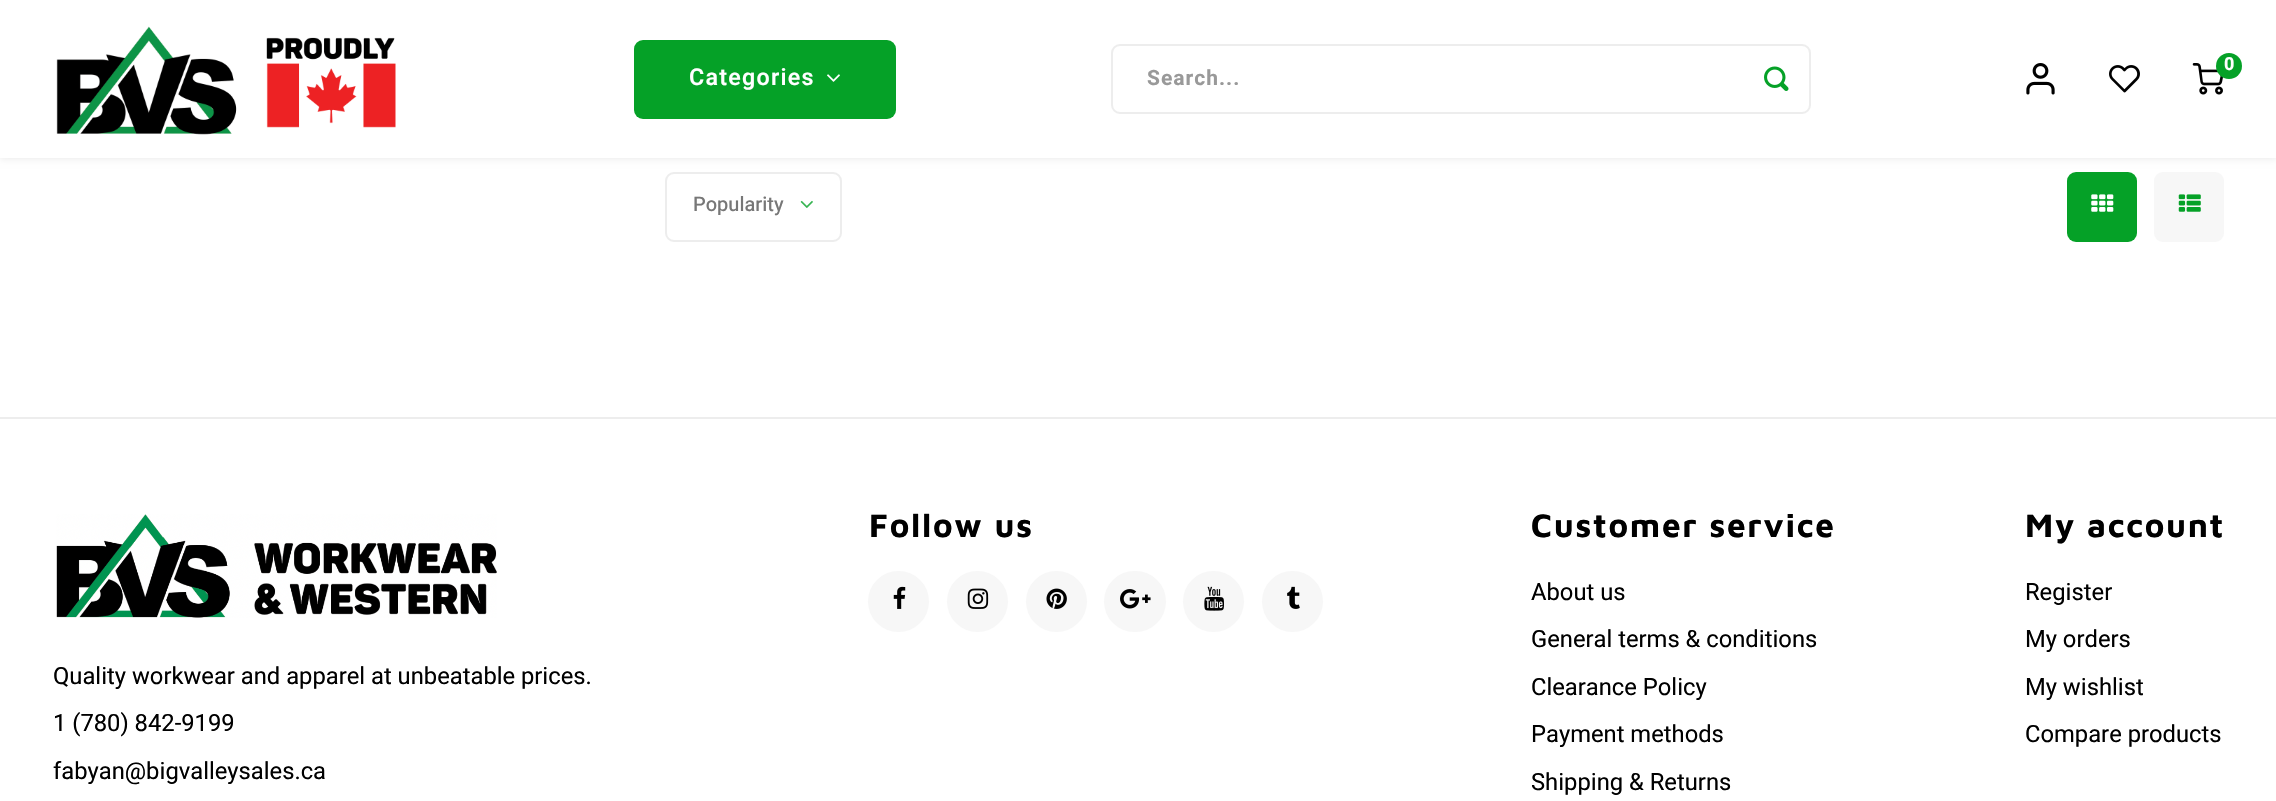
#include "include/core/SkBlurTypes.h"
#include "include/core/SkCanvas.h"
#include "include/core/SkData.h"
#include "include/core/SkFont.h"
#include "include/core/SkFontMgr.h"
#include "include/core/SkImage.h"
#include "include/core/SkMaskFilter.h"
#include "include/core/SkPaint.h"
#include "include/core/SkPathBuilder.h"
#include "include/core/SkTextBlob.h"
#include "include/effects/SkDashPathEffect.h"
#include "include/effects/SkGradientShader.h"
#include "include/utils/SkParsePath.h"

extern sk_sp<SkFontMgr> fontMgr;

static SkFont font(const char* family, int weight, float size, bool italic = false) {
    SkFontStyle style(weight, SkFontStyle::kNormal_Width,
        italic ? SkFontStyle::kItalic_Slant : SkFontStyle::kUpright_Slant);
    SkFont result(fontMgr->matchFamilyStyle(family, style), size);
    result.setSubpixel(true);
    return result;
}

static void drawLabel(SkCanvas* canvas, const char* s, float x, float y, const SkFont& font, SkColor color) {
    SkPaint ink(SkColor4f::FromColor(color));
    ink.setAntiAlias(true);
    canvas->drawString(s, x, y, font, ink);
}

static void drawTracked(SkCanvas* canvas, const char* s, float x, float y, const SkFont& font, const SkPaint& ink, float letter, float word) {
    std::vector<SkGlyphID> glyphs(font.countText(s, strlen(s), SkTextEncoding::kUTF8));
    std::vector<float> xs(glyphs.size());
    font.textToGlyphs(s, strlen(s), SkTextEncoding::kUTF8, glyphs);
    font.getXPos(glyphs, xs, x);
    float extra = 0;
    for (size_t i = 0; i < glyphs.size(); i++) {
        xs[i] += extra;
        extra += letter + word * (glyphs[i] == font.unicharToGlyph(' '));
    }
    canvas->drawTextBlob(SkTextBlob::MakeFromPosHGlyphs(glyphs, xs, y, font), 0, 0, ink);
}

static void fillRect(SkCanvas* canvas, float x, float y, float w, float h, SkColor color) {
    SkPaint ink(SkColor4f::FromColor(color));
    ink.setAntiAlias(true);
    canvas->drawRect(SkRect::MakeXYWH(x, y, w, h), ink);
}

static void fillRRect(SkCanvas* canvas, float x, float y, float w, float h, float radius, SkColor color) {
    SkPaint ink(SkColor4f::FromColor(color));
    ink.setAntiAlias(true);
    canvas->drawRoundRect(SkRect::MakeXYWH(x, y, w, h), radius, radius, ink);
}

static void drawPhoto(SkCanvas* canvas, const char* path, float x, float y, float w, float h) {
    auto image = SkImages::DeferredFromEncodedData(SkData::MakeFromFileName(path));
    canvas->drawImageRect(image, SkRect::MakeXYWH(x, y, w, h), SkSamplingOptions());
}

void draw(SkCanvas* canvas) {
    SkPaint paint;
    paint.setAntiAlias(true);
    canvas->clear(0xFFFFFFFF);
    paint.setColor(0x14000000);
    paint.setMaskFilter(SkMaskFilter::MakeBlur(kNormal_SkBlurStyle, 3.5f));
    canvas->drawRect(SkRect::MakeXYWH(0, 2, 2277, 157), paint);
    paint.setMaskFilter(nullptr);
    fillRect(canvas, 0, 0, 2276, 158, 0xFFFFFFFF);
    drawPhoto(canvas, "assets/img1.png", 56, 26, 340, 109);
    drawPhoto(canvas, "assets/img2.png", 2026, 63, 29, 32);
    drawPhoto(canvas, "assets/img3.png", 2109, 65, 31, 28);
    drawPhoto(canvas, "assets/img4.png", 2192, 63, 31, 32);
    paint.setColor(0xFF05A127);
    canvas->drawCircle(2229, 66, 13, paint);
    SkFont font1 = font("Heebo", 700, 18);
    drawLabel(canvas, "0", 2224, 70, font1, 0xFFFFFFFF);
    fillRRect(canvas, 634, 40, 262, 79, 9, 0xFF05A127);
    SkFont font2 = font("Heebo", 600, 23.25f);
    paint.setColor(0xFFFFFFFF);
    drawTracked(canvas, "Categories", 689, 85, font2, paint, 1.25f, 0);
    drawPhoto(canvas, "assets/img5.png", 827, 74, 13, 8);
    paint.setStroke(true);
    paint.setStrokeWidth(2);
    paint.setColor(0xFFEDEDED);
    canvas->drawRoundRect(SkRect::MakeXYWH(1112, 45, 698, 68), 8, 8, paint);
    SkFont font3 = font("Heebo", 700, 21);
    paint.setStroke(false);
    paint.setColor(0xFF999999);
    drawTracked(canvas, "Search...", 1147, 85, font3, paint, 1, 0);
    drawPhoto(canvas, "assets/img6.png", 1764, 66, 25, 25);
    paint.setStroke(true);
    paint.setColor(0xFFEDEDED);
    canvas->drawRoundRect(SkRect::MakeXYWH(666, 173, 175, 68), 8, 8, paint);
    SkFont font4 = font("Heebo", 500, 20);
    drawLabel(canvas, "Popularity", 693, 211, font4, 0xFF777777);
    drawPhoto(canvas, "assets/img7.png", 800, 200, 13, 8);
    fillRRect(canvas, 2067, 172, 70, 70, 9, 0xFF05A127);
    drawPhoto(canvas, "assets/img8.png", 2091, 194, 23, 18);
    fillRRect(canvas, 2154, 172, 70, 70, 9, 0xFFF7F7F7);
    drawPhoto(canvas, "assets/img9.png", 2178, 194, 23, 18);
    fillRect(canvas, 0, 417, 2276, 2, 0xFFEDEDED);
    drawPhoto(canvas, "assets/img10.png", 56, 514, 441, 104);
    SkFont font5 = font("Heebo", 400, 23.75f);
    drawLabel(canvas, "Quality workwear and apparel at unbeatable prices.", 53, 684, font5, 0xFF000000);
    drawLabel(canvas, "1 (780) 842-9199", 53, 731, font5, 0xFF000000);
    drawLabel(canvas, "fabyan@bigvalleysales.ca", 53, 779, font5, 0xFF000000);
    SkFont font6 = font("Maven Pro", 700, 33.25f);
    paint.setStroke(false);
    paint.setColor(0xFF000000);
    drawTracked(canvas, "Follow us", 869, 537, font6, paint, 1.7f, 0);
    paint.setColor(0xFFF7F7F7);
    canvas->drawCircle(898.5f, 601.5f, 30.5f, paint);
    drawPhoto(canvas, "assets/img11.png", 893, 586, 13, 23);
    canvas->drawCircle(977.5f, 601.5f, 30.5f, paint);
    drawPhoto(canvas, "assets/img12.png", 967, 588, 22, 21);
    canvas->drawCircle(1056.5f, 601.5f, 30.5f, paint);
    drawPhoto(canvas, "assets/img13.png", 1046, 588, 21, 21);
    fillRRect(canvas, 1104, 571, 62, 61, 30.5f, 0xFFF7F7F7);
    drawPhoto(canvas, "assets/img14.png", 1120, 589, 31, 20);
    canvas->drawCircle(1213.5f, 601.5f, 30.5f, paint);
    drawPhoto(canvas, "assets/img15.png", 1204, 586, 20, 25);
    canvas->drawCircle(1292.5f, 601.5f, 30.5f, paint);
    drawPhoto(canvas, "assets/img16.png", 1287, 586, 13, 23);
    paint.setColor(0xFF000000);
    drawTracked(canvas, "Customer service", 1531, 537, font6, paint, 1.7f, 0);
    drawLabel(canvas, "About us", 1531, 600, font5, 0xFF000000);
    drawLabel(canvas, "General terms & conditions", 1531, 647, font5, 0xFF000000);
    drawLabel(canvas, "Clearance Policy", 1531, 695, font5, 0xFF000000);
    drawLabel(canvas, "Payment methods", 1531, 742, font5, 0xFF000000);
    drawLabel(canvas, "Shipping & Returns", 1531, 790, font5, 0xFF000000);
    drawTracked(canvas, "My account", 2025, 537, font6, paint, 1.7f, 0);
    drawLabel(canvas, "Register", 2025, 600, font5, 0xFF000000);
    drawLabel(canvas, "My orders", 2025, 647, font5, 0xFF000000);
    drawLabel(canvas, "My wishlist", 2025, 695, font5, 0xFF000000);
    drawLabel(canvas, "Compare products", 2025, 742, font5, 0xFF000000);
}
